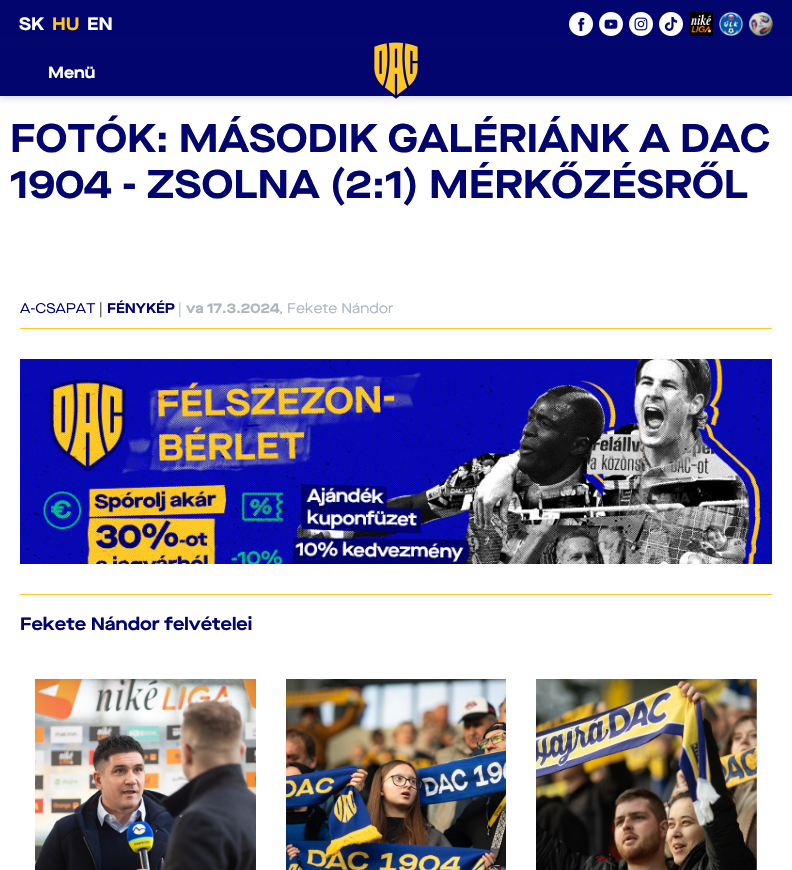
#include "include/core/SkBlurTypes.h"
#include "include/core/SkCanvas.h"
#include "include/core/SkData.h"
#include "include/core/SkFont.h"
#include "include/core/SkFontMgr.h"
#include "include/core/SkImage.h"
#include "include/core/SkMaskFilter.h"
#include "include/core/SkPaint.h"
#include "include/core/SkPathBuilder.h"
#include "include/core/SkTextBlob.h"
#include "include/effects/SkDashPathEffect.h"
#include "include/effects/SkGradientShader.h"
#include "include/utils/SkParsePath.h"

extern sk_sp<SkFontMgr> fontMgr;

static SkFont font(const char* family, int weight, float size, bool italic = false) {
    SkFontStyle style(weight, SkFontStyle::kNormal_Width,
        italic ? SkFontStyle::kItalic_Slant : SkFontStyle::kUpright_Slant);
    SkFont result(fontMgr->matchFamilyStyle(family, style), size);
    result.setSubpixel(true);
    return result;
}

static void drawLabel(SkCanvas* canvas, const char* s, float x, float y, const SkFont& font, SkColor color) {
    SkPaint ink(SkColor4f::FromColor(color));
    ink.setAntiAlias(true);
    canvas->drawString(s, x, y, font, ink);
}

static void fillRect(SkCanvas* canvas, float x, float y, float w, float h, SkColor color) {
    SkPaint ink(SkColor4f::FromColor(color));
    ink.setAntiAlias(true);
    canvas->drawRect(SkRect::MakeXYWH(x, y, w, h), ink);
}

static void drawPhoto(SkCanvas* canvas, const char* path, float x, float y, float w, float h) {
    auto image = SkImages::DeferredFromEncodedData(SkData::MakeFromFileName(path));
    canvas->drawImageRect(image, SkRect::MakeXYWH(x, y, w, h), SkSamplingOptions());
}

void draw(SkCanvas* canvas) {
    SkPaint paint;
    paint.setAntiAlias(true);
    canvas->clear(0xFFFFFFFF);
    fillRect(canvas, 0, 0, 792, 48, 0xFF01056D);
    SkFont font1 = font("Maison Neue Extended", 700, 18);
    drawLabel(canvas, "SK", 19, 30, font1, 0xFFFFFFFF);
    drawLabel(canvas, "HU", 52, 30, font1, 0xFFFFC723);
    drawLabel(canvas, "EN", 87, 30, font1, 0xFFFFFFFF);
    drawPhoto(canvas, "assets/img1.png", 569, 12, 24, 24);
    drawPhoto(canvas, "assets/img2.png", 599, 12, 24, 24);
    drawPhoto(canvas, "assets/img3.png", 629, 12, 24, 24);
    drawPhoto(canvas, "assets/img4.png", 659, 12, 24, 24);
    drawPhoto(canvas, "assets/img5.png", 689, 12, 24, 24);
    drawPhoto(canvas, "assets/img6.png", 719, 12, 24, 24);
    drawPhoto(canvas, "assets/img7.png", 749, 12, 24, 24);
    paint.setColor(0x33123063);
    paint.setMaskFilter(SkMaskFilter::MakeBlur(kNormal_SkBlurStyle, 4));
    canvas->drawRect(SkRect::MakeXYWH(0, 50, 792, 48), paint);
    paint.setMaskFilter(nullptr);
    fillRect(canvas, 0, 48, 792, 48, 0xFF01056D);
    SkFont font2 = font("Maison Neue Extended", 700, 16);
    drawLabel(canvas, "Menü", 48, 78, font2, 0xFFFFFFFF);
    drawPhoto(canvas, "assets/img8.png", 372, 41, 48, 58);
    SkFont font3 = font("Maison Neue Extended", 700, 40);
    drawLabel(canvas, "FOTÓK: MÁSODIK GALÉRIÁNK A DAC", 10, 152, font3, 0xFF01056D);
    drawLabel(canvas, "1904 - ZSOLNA (2:1) MÉRKŐZÉSRŐL", 10, 198, font3, 0xFF01056D);
    SkFont font4 = font("Maison Neue Extended", 400, 14);
    drawLabel(canvas, "A-CSAPAT", 20, 313, font4, 0xFF01056D);
    drawLabel(canvas, "|", 99, 313, font4, 0xFF1B1C1C);
    SkFont font5 = font("Maison Neue Extended", 700, 14);
    drawLabel(canvas, "FÉNYKÉP", 107, 313, font5, 0xFF01056D);
    drawLabel(canvas, "|", 178, 313, font4, 0xFFADB5BD);
    drawLabel(canvas, "va 17.3.2024", 186, 313, font5, 0xFFADB5BD);
    drawLabel(canvas, ", Fekete Nándor", 279, 313, font4, 0xFFADB5BD);
    fillRect(canvas, 20, 328, 752, 1, 0xFFFFC723);
    fillRect(canvas, 20, 594, 752, 1, 0xFFFFC723);
    drawPhoto(canvas, "assets/img9.png", 20, 359, 752, 205);
    drawLabel(canvas, "Fekete Nándor felvételei", 20, 630, font1, 0xFF01056D);
    drawPhoto(canvas, "assets/img10.png", 35, 679, 221, 191);
    drawPhoto(canvas, "assets/img11.png", 286, 679, 220, 191);
    drawPhoto(canvas, "assets/img12.png", 536, 679, 221, 191);
}
